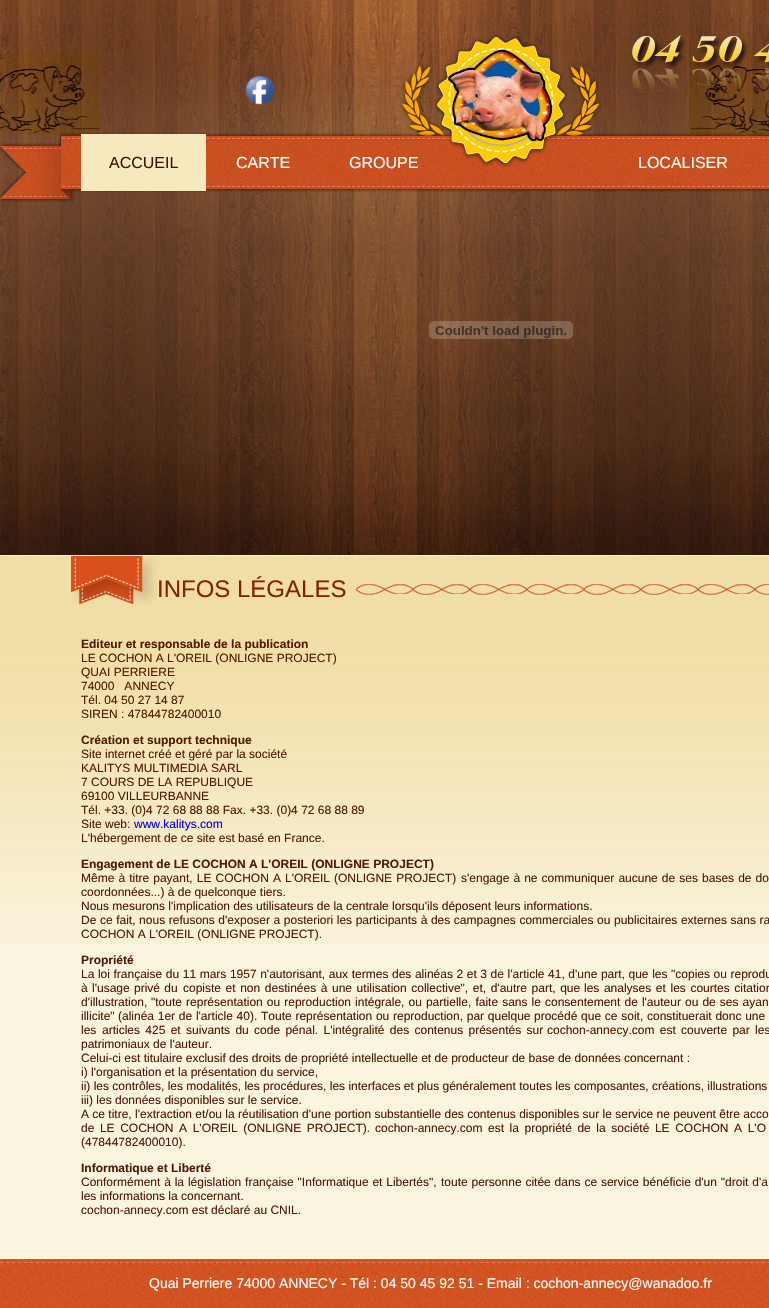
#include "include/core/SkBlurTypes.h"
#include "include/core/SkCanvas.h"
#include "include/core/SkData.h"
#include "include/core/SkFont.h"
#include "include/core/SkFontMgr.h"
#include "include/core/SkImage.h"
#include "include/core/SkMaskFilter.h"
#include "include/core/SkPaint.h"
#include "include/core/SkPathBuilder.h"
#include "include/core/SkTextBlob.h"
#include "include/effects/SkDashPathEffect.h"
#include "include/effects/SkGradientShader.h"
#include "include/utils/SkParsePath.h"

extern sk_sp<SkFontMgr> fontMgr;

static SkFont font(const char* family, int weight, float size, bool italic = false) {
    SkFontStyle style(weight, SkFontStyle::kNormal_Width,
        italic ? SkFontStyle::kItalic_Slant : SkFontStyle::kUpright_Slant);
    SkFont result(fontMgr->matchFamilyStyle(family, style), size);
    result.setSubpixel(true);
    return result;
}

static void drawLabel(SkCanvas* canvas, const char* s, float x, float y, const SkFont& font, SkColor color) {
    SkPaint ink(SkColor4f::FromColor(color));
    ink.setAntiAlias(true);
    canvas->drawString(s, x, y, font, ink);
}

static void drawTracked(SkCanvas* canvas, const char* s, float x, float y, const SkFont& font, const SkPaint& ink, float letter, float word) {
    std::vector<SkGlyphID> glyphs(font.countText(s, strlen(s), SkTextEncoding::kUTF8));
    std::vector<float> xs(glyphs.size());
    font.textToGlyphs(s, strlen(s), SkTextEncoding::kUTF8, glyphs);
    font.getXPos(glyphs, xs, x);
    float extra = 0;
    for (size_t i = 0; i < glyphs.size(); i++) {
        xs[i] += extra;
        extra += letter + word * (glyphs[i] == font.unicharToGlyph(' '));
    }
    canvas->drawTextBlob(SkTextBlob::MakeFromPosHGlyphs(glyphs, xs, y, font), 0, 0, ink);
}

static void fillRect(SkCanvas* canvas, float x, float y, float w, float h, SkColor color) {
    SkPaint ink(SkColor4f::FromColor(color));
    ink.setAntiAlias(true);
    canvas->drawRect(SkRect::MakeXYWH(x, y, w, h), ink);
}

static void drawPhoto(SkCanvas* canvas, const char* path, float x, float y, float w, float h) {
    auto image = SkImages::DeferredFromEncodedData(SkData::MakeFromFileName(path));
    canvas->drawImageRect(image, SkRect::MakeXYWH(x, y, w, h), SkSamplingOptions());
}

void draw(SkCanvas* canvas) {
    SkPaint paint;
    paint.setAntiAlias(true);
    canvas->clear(0xFFFBF4DF);
    drawPhoto(canvas, "assets/img1.png", 0, 0, 769, 944);
    drawPhoto(canvas, "assets/img2.png", 0, 34, 769, 168);
    drawPhoto(canvas, "assets/img3.png", 245, 75, 30, 30);
    fillRect(canvas, 81, 134, 125, 57, 0xFFF7E9BE);
    SkFont font1 = font("Liberation Sans", 400, 16);
    drawLabel(canvas, "ACCUEIL", 109, 168, font1, 0xFF3D1300);
    drawLabel(canvas, "CARTE", 236, 168, font1, 0xFFFFFFFF);
    drawLabel(canvas, "GROUPE", 349, 168, font1, 0xFFFFFFFF);
    drawLabel(canvas, "LOCALISER", 638, 168, font1, 0xFFFFFFFF);
    drawPhoto(canvas, "assets/img4.png", 429, 321, 144, 18);
    drawPhoto(canvas, "assets/img5.png", 71, 556, 698, 49);
    fillRect(canvas, 157, 575, 199, 20, 0xFFF1DEA5);
    SkFont font2 = font("Liberation Sans", 400, 24);
    drawLabel(canvas, "INFOS LÉGALES", 157, 597, font2, 0xFF832400);
    SkFont font3 = font("Liberation Sans", 700, 12);
    drawLabel(canvas, "Editeur et responsable de la publication", 81, 648, font3, 0xFF531902);
    SkFont font4 = font("Liberation Sans", 400, 12);
    drawLabel(canvas, "LE COCHON A L'OREIL (ONLIGNE PROJECT)", 81, 662, font4, 0xFF531902);
    drawLabel(canvas, "QUAI PERRIERE", 81, 676, font4, 0xFF531902);
    drawLabel(canvas, "74000   ANNECY", 81, 690, font4, 0xFF531902);
    drawLabel(canvas, "Tél. 04 50 27 14 87", 81, 704, font4, 0xFF531902);
    drawLabel(canvas, "SIREN : 47844782400010", 81, 718, font4, 0xFF531902);
    drawLabel(canvas, "Création et support technique", 81, 744, font3, 0xFF531902);
    drawLabel(canvas, "Site internet créé et géré par la société", 81, 758, font4, 0xFF531902);
    drawLabel(canvas, "KALITYS MULTIMEDIA SARL", 81, 772, font4, 0xFF531902);
    drawLabel(canvas, "7 COURS DE LA REPUBLIQUE", 81, 786, font4, 0xFF531902);
    drawLabel(canvas, "69100 VILLEURBANNE", 81, 800, font4, 0xFF531902);
    drawLabel(canvas, "Tél. +33. (0)4 72 68 88 88 Fax. +33. (0)4 72 68 88 89", 81, 814, font4, 0xFF531902);
    drawLabel(canvas, "Site web:", 81, 828, font4, 0xFF531902);
    drawLabel(canvas, "www.kalitys.com", 134, 828, font4, 0xFF0000EE);
    drawLabel(canvas, "L'hébergement de ce site est basé en France.", 81, 842, font4, 0xFF531902);
    drawLabel(canvas, "Engagement de LE COCHON A L'OREIL (ONLIGNE PROJECT)", 81, 868, font3, 0xFF531902);
    paint.setColor(0xFF531902);
    drawTracked(canvas, "Même à titre payant, LE COCHON A L'OREIL (ONLIGNE PROJECT)", 81, 882, font4, paint, 0, 0.75f);
    drawTracked(canvas, "s'engage à ne communiquer aucune de ses bases de do", 461, 882, font4, paint, 0, 0.75f);
    drawLabel(canvas, "coordonnées...) à de quelconque tiers.", 81, 896, font4, 0xFF531902);
    drawLabel(canvas, "Nous mesurons l'implication des utilisateurs de la centrale lorsqu'ils déposent leurs informations.", 81, 910, font4, 0xFF531902);
    drawTracked(canvas, "De ce fait, nous refusons d'exposer a posteriori les participants à des campagnes commerciales ou publicitaires externes sans ra", 81, 924, font4, paint, 0, 0.25f);
    drawLabel(canvas, "COCHON A L'OREIL (ONLIGNE PROJECT).", 81, 938, font4, 0xFF531902);
    drawLabel(canvas, "Propriété", 81, 964, font3, 0xFF531902);
    drawTracked(canvas, "La loi française du 11 mars 1957 n'autorisant, aux termes des alinéas 2 et 3 de l'article 41, d'une part, que les \"copies ou reprodu", 81, 978, font4, paint, 0, 0.25f);
    drawTracked(canvas, "à l'usage privé du", 81, 992, font4, paint, 0, 1);
    drawTracked(canvas, "copiste et non destinées à une utilisation collective\", et, d'autre part, que", 183, 992, font4, paint, 0, 1.25f);
    drawTracked(canvas, "les analyses et les courtes citation", 584, 992, font4, paint, 0, 1.25f);
    drawLabel(canvas, "d'illustration,", 81, 1006, font4, 0xFF531902);
    drawTracked(canvas, "\"toute représentation ou reproduction intégrale, ou partielle, faite sans le", 151, 1006, font4, paint, 0, 0.75f);
    drawTracked(canvas, "consentement de l'auteur ou de ses ayan", 545, 1006, font4, paint, 0, 0.75f);
    drawLabel(canvas, "illicite\"", 81, 1020, font4, 0xFF531902);
    drawTracked(canvas, "(alinéa 1er de l'article 40). Toute représentation ou reproduction, par quelque", 118, 1020, font4, paint, 0, 0.4f);
    drawTracked(canvas, "procédé que ce soit, constituerait donc une", 534, 1020, font4, paint, 0, 0.4f);
    drawLabel(canvas, "les", 81, 1034, font4, 0xFF531902);
    drawTracked(canvas, "articles 425 et suivants du code pénal. L'intégralité des contenus présentés sur", 102, 1034, font4, paint, 0, 2);
    drawTracked(canvas, "cochon-annecy.com est couverte par les", 547, 1034, font4, paint, 0, 2);
    drawLabel(canvas, "patrimoniaux de l'auteur.", 81, 1048, font4, 0xFF531902);
    drawLabel(canvas, "Celui-ci est titulaire exclusif des droits de propriété intellectuelle et de producteur de base de données concernant :", 81, 1062, font4, 0xFF531902);
    drawLabel(canvas, "i) l'organisation et la présentation du service,", 81, 1076, font4, 0xFF531902);
    drawLabel(canvas, "ii) les contrôles, les modalités, les procédures, les interfaces et plus généralement toutes les composantes, créations, illustrations", 81, 1090, font4, 0xFF531902);
    drawLabel(canvas, "iii) les données disponibles sur le service.", 81, 1104, font4, 0xFF531902);
    drawLabel(canvas, "A ce titre, l'extraction et/ou la réutilisation d'une portion substantielle des contenus disponibles sur le service ne peuvent être acco", 81, 1118, font4, 0xFF531902);
    drawTracked(canvas, "de LE COCHON A L'OREIL (ONLIGNE PROJECT).", 81, 1132, font4, paint, 0, 2.25f);
    drawTracked(canvas, "cochon-annecy.com est la propriété de la société LE COCHON A L'O", 375, 1132, font4, paint, 0, 2.25f);
    drawLabel(canvas, "(47844782400010).", 81, 1146, font4, 0xFF531902);
    drawLabel(canvas, "Informatique et Liberté", 81, 1172, font3, 0xFF531902);
    drawTracked(canvas, "Conformément à la législation française \"Informatique et Libertés\",", 81, 1186, font4, paint, 0, 0.5f);
    drawTracked(canvas, "toute personne citée dans ce service bénéficie d'un \"droit d'a", 441, 1186, font4, paint, 0, 0.5f);
    drawLabel(canvas, "les informations la concernant.", 81, 1200, font4, 0xFF531902);
    drawLabel(canvas, "cochon-annecy.com est déclaré au CNIL.", 81, 1214, font4, 0xFF531902);
    drawPhoto(canvas, "assets/img6.png", 0, 1259, 769, 49);
    SkFont font5 = font("Liberation Sans", 400, 14);
    drawLabel(canvas, "Quai Perriere 74000 ANNECY - Tél : 04 50 45 92 51 - Email : cochon-annecy@wanadoo.fr", 149, 1288, font5, 0xFFFFFFFF);
}
